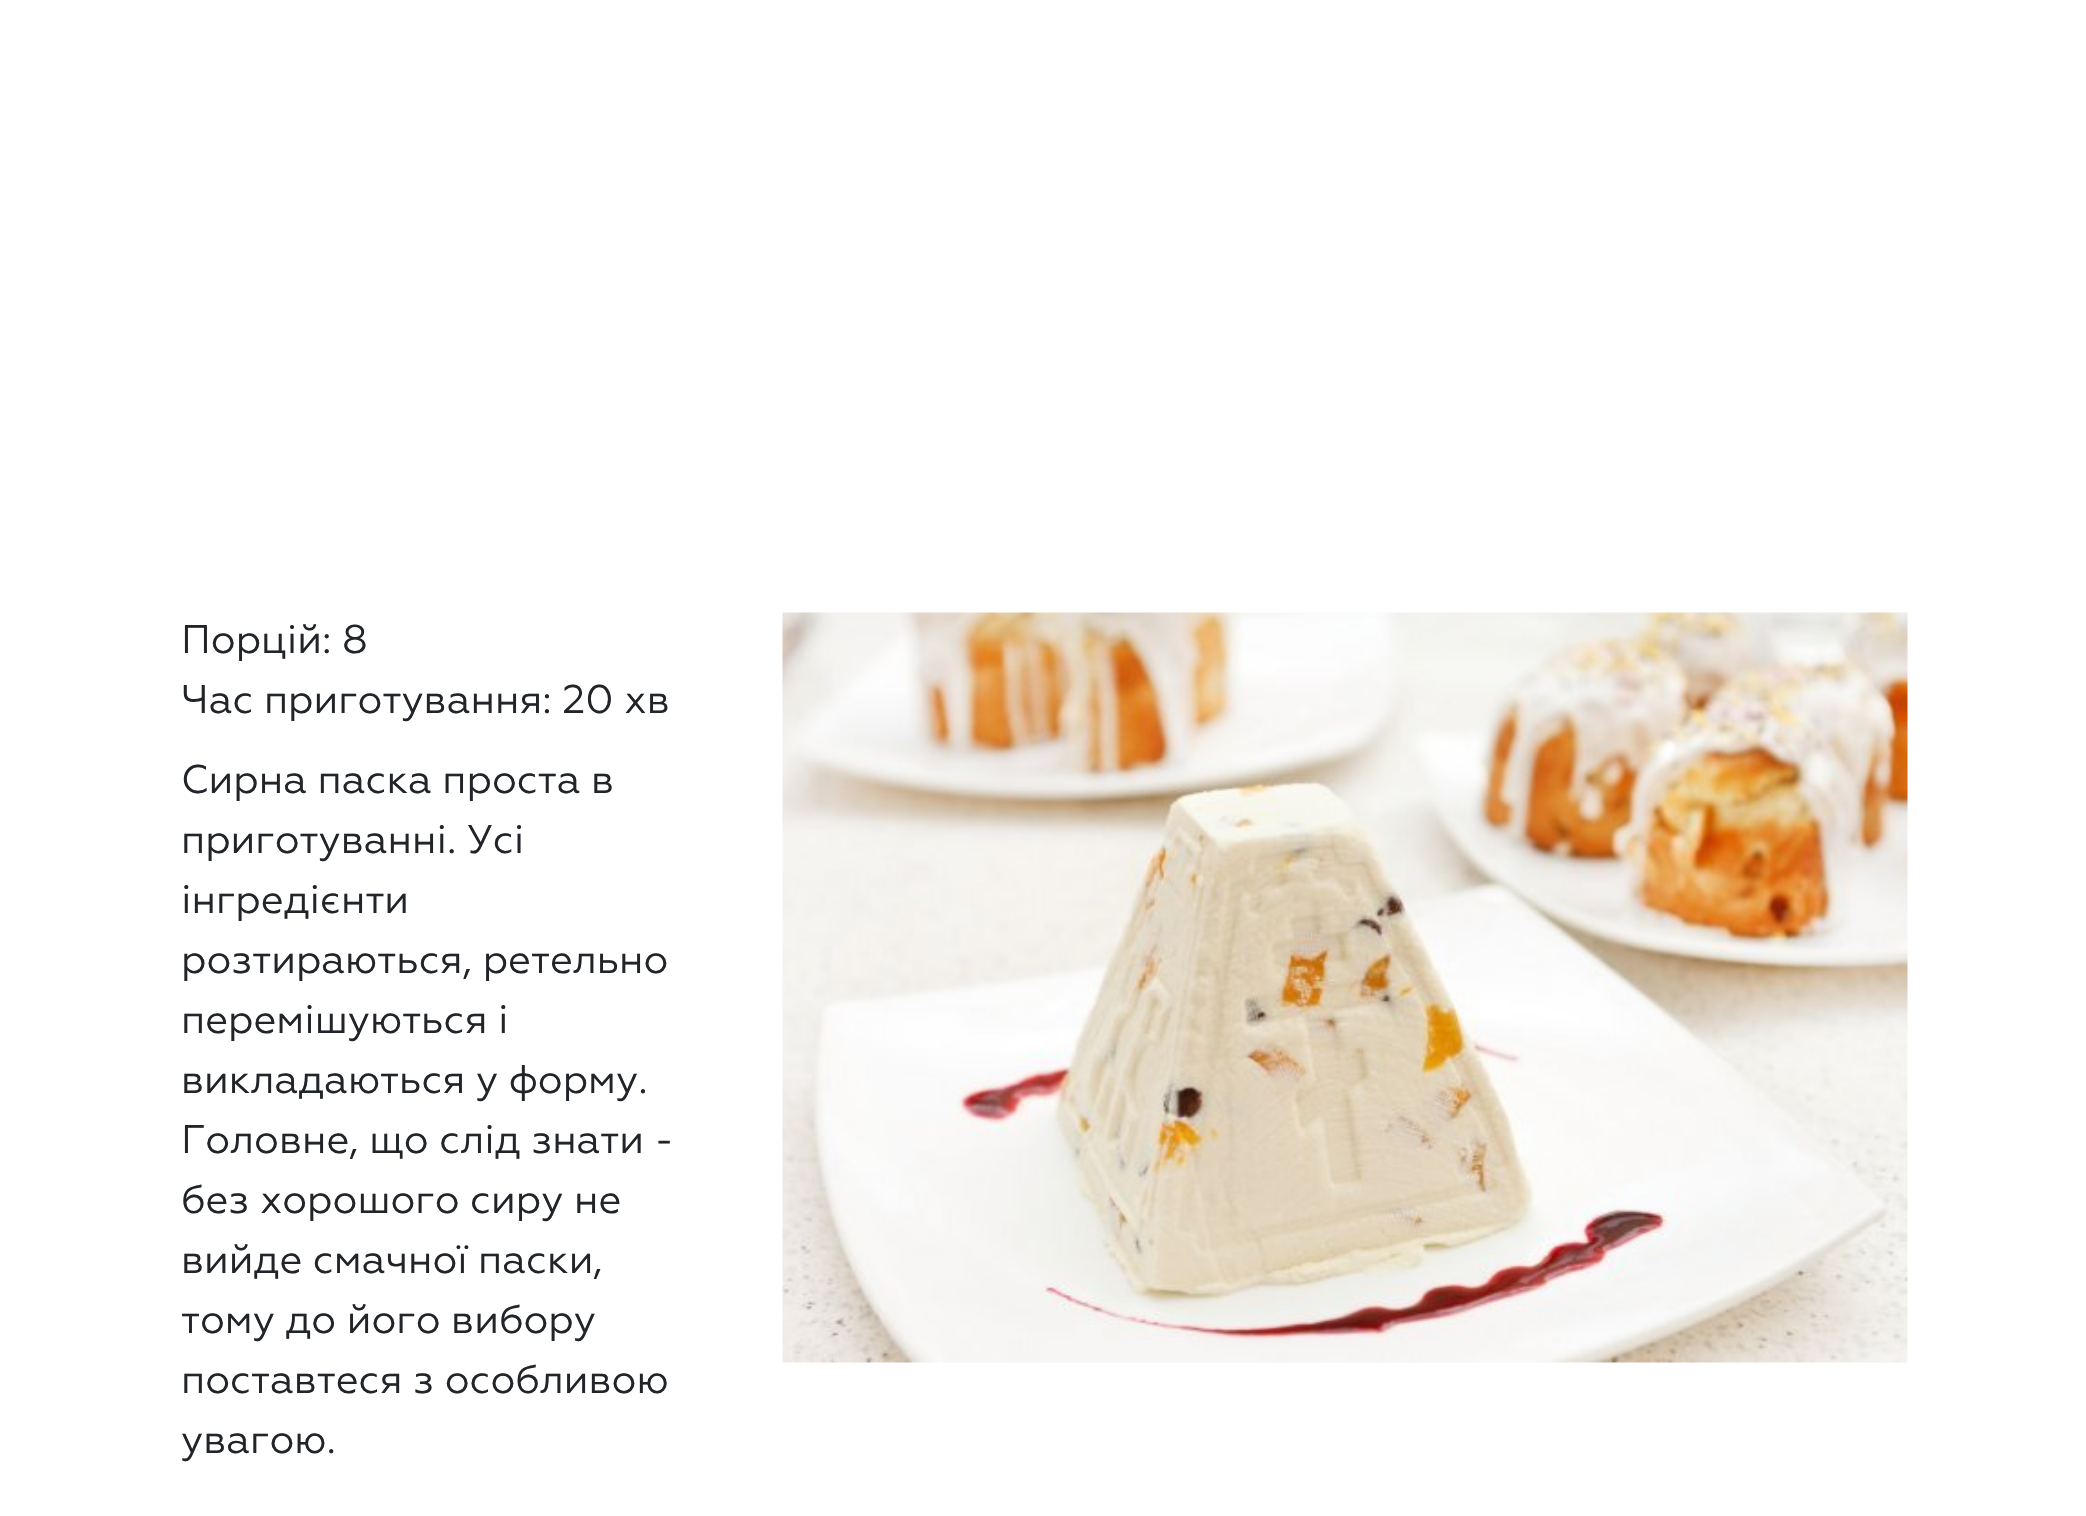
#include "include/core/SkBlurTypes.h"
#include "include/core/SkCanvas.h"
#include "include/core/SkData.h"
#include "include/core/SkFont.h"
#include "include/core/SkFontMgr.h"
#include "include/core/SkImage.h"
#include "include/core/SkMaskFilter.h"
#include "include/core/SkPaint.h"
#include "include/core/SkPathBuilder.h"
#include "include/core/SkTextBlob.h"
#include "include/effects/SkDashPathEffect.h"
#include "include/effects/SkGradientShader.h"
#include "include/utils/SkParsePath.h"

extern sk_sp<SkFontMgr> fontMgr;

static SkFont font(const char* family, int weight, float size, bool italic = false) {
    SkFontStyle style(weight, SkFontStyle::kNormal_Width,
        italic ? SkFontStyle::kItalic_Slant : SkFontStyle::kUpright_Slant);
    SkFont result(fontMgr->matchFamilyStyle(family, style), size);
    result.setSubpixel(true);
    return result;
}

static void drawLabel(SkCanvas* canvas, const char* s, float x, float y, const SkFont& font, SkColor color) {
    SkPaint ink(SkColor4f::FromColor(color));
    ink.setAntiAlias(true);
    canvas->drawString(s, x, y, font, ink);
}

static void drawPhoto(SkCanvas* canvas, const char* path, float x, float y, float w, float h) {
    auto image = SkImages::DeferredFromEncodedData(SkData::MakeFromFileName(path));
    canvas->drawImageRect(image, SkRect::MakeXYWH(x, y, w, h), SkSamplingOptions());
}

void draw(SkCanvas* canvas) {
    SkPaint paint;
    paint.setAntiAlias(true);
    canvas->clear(0xFFFFFFFF);
    SkFont font1 = font("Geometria", 400, 40);
    drawLabel(canvas, "Порцій: 8", 181, 653, font1, 0xFF212529);
    drawLabel(canvas, "Час приготування: 20 хв", 181, 713, font1, 0xFF212529);
    drawLabel(canvas, "Сирна паска проста в", 181, 793, font1, 0xFF212529);
    drawLabel(canvas, "приготуванні. Усі", 181, 853, font1, 0xFF212529);
    drawLabel(canvas, "інгредієнти", 181, 913, font1, 0xFF212529);
    drawLabel(canvas, "розтираються, ретельно", 181, 973, font1, 0xFF212529);
    drawLabel(canvas, "перемішуються і", 181, 1033, font1, 0xFF212529);
    drawLabel(canvas, "викладаються у форму.", 181, 1093, font1, 0xFF212529);
    drawLabel(canvas, "Головне, що слід знати -", 181, 1153, font1, 0xFF212529);
    drawLabel(canvas, "без хорошого сиру не", 181, 1213, font1, 0xFF212529);
    drawLabel(canvas, "вийде смачної паски,", 181, 1273, font1, 0xFF212529);
    drawLabel(canvas, "тому до його вибору", 181, 1333, font1, 0xFF212529);
    drawLabel(canvas, "поставтеся з особливою", 181, 1393, font1, 0xFF212529);
    drawLabel(canvas, "увагою.", 181, 1453, font1, 0xFF212529);
    drawPhoto(canvas, "assets/img1.png", 782, 612, 1126, 751);
}
